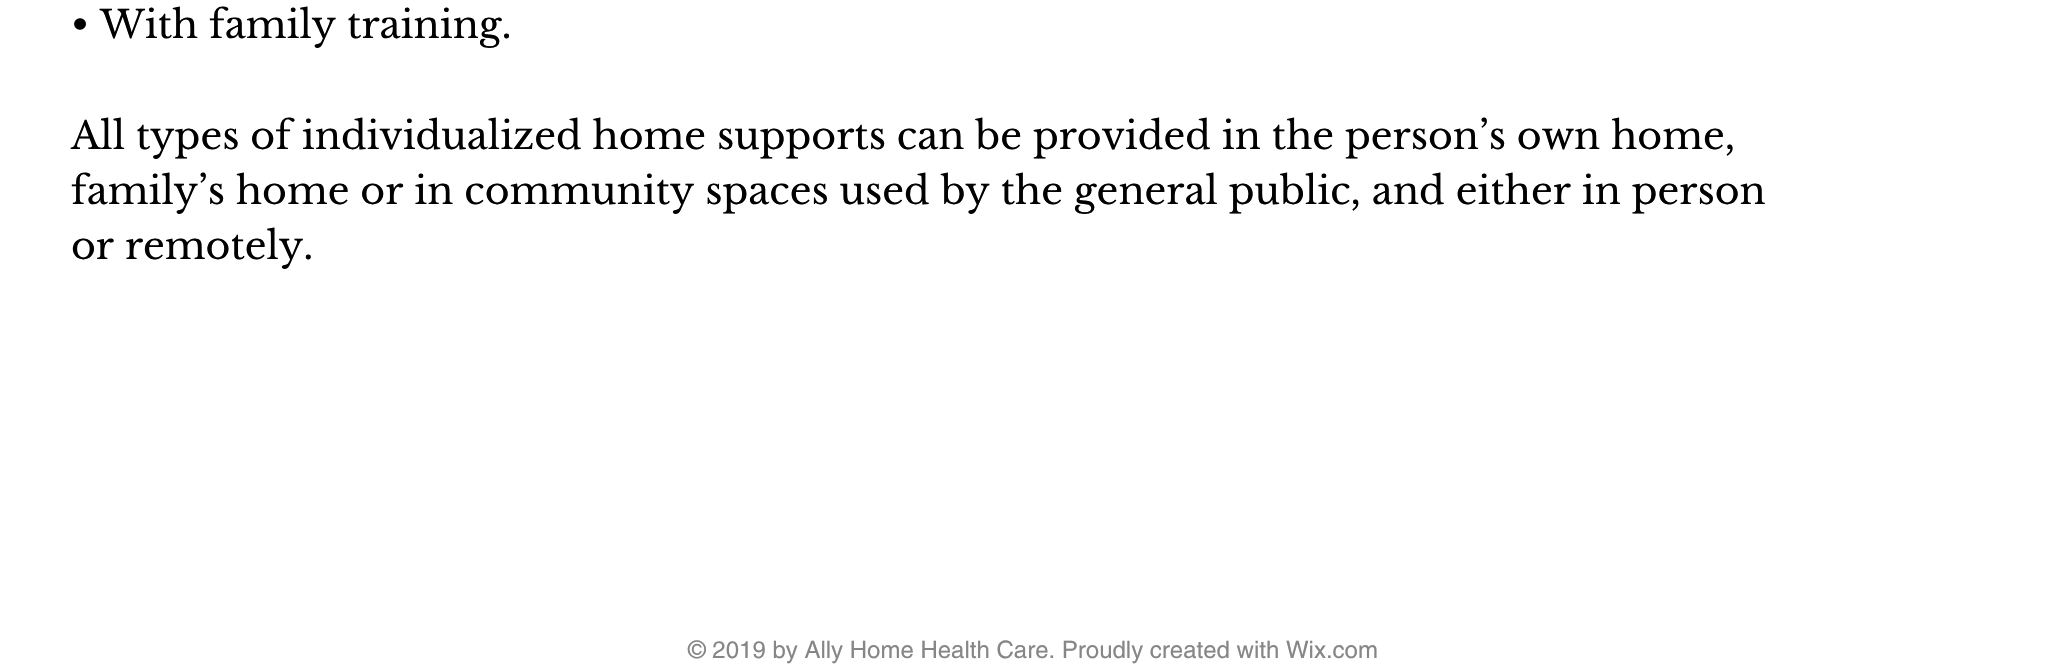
#include "include/core/SkBlurTypes.h"
#include "include/core/SkCanvas.h"
#include "include/core/SkData.h"
#include "include/core/SkFont.h"
#include "include/core/SkFontMgr.h"
#include "include/core/SkImage.h"
#include "include/core/SkMaskFilter.h"
#include "include/core/SkPaint.h"
#include "include/core/SkPathBuilder.h"
#include "include/core/SkTextBlob.h"
#include "include/effects/SkDashPathEffect.h"
#include "include/effects/SkGradientShader.h"
#include "include/utils/SkParsePath.h"

extern sk_sp<SkFontMgr> fontMgr;

static SkFont font(const char* family, int weight, float size, bool italic = false) {
    SkFontStyle style(weight, SkFontStyle::kNormal_Width,
        italic ? SkFontStyle::kItalic_Slant : SkFontStyle::kUpright_Slant);
    SkFont result(fontMgr->matchFamilyStyle(family, style), size);
    result.setSubpixel(true);
    return result;
}

static void drawLabel(SkCanvas* canvas, const char* s, float x, float y, const SkFont& font, SkColor color) {
    SkPaint ink(SkColor4f::FromColor(color));
    ink.setAntiAlias(true);
    canvas->drawString(s, x, y, font, ink);
}

void draw(SkCanvas* canvas) {
    SkPaint paint;
    paint.setAntiAlias(true);
    canvas->clear(0xFFFFFFFF);
    SkFont font1 = font("Libre Baskerville", 400, 38);
    drawLabel(canvas, "• With family training.", 71, 38, font1, 0xFF000000);
    drawLabel(canvas, "All types of individualized home supports can be provided in the person’s own home,", 71, 149, font1, 0xFF000000);
    drawLabel(canvas, "family’s home or in community spaces used by the general public, and either in person", 71, 204, font1, 0xFF000000);
    drawLabel(canvas, "or remotely.", 71, 259, font1, 0xFF000000);
    SkFont font2 = font("helvetica", 400, 24);
    drawLabel(canvas, "© 2019 by Ally Home Health Care. Proudly created with Wix.com", 688, 658, font2, 0xFF868686);
}
